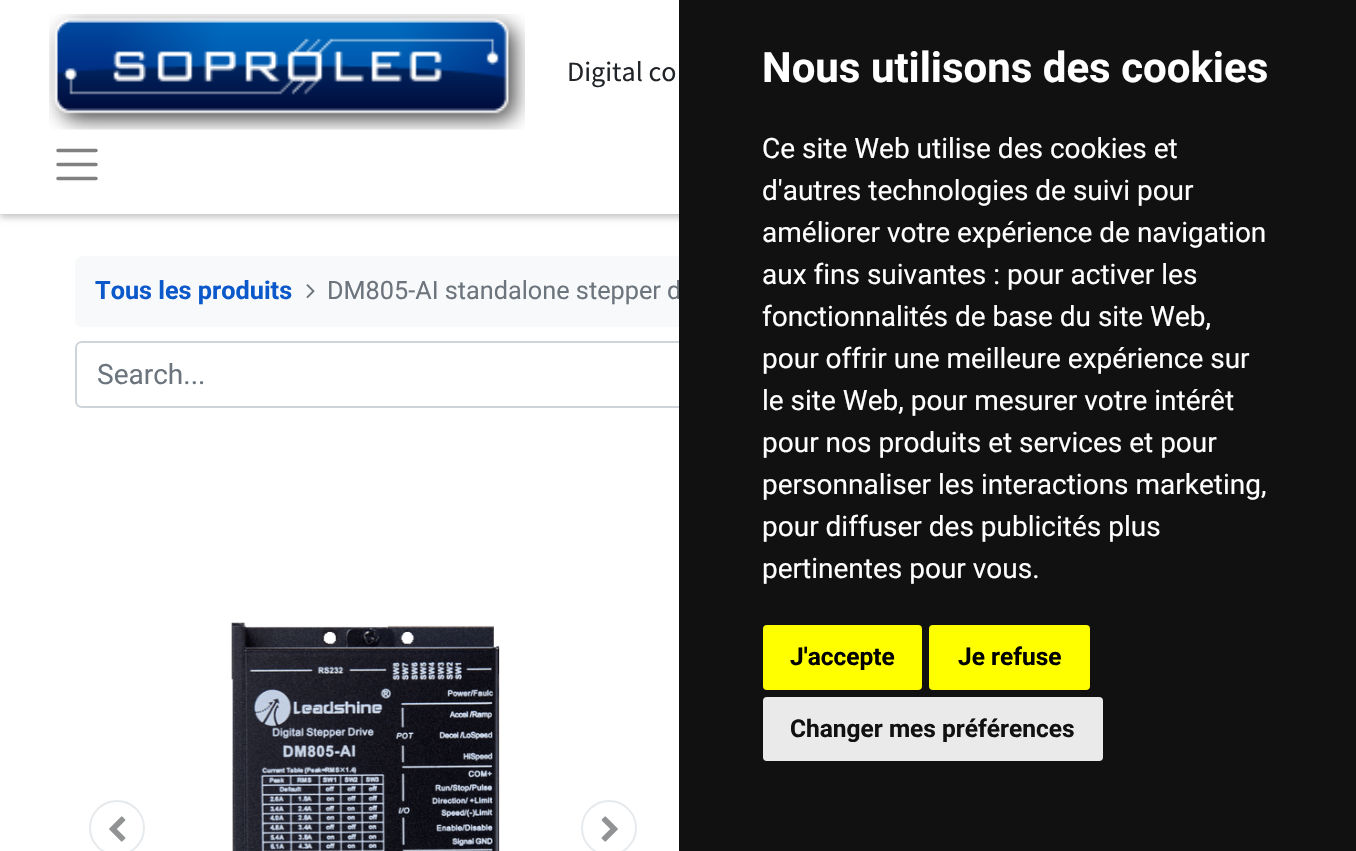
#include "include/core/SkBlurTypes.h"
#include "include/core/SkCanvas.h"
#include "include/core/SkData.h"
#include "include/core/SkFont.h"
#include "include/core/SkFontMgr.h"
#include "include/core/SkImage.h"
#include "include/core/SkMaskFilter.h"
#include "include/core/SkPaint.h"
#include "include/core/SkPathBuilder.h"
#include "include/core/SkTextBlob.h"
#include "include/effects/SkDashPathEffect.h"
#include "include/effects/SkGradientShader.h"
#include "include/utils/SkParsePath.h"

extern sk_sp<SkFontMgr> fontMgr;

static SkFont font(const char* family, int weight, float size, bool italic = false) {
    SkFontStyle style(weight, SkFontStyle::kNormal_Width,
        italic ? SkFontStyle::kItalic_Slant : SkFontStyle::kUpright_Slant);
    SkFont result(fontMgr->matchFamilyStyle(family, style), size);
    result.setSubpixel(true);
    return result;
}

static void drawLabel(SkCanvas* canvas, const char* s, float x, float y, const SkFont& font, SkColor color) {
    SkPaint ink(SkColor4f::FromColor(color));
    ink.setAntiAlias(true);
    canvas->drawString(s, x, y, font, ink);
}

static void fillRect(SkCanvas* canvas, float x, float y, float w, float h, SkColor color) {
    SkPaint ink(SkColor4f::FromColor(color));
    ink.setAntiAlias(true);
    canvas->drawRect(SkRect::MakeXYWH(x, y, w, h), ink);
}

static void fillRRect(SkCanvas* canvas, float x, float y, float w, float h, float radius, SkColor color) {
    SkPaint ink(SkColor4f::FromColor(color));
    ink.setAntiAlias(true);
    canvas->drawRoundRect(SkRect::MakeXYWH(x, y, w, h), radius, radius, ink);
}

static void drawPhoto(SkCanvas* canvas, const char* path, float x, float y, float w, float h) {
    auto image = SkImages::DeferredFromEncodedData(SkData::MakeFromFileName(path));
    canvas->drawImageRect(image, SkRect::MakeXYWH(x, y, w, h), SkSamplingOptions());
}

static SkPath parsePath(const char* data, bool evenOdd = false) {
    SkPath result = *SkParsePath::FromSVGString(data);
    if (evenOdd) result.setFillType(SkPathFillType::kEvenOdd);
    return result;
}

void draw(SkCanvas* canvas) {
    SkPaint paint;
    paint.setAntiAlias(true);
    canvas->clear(0xFFFFFFFF);
    paint.setColor(0x40000000);
    paint.setMaskFilter(SkMaskFilter::MakeBlur(kNormal_SkBlurStyle, 3.5f));
    canvas->drawRect(SkRect::MakeXYWH(0, 4, 1356, 213), paint);
    paint.setMaskFilter(nullptr);
    fillRect(canvas, 0, 0, 679, 214, 0xFFFFFFFF);
    drawPhoto(canvas, "assets/img1.png", 49, 14, 476, 116);
    SkFont font1 = font("Source Sans Pro", 400, 28);
    drawLabel(canvas, "Digital co", 567, 81, font1, 0xFF212529);
    paint.setStroke(true);
    paint.setStrokeWidth(3.5f);
    paint.setStrokeCap(SkPaint::kRound_Cap);
    paint.setColor(0xFF808080);
    canvas->drawPath(parsePath("M58 150.5H96M58 164.5H96M58 178.5H96"), paint);
    fillRRect(canvas, 75, 256, 1208, 71, 7, 0xFFF8F9FA);
    SkFont font2 = font("Roboto", 700, 25.25f);
    drawLabel(canvas, "Tous les produits", 95, 299, font2, 0xFF0A58CA);
    drawPhoto(canvas, "assets/img2.png", 306, 284, 9, 15);
    SkFont font3 = font("Roboto", 400, 25.25f);
    drawLabel(canvas, "DM805-AI standalone stepper d", 327, 299, font3, 0xFF6C757D);
    paint.setStrokeWidth(2);
    paint.setStrokeCap(SkPaint::kButt_Cap);
    paint.setColor(0xFFCED4DA);
    canvas->drawPath(parsePath("M82 342H792V407H82C78.5 407 76 404.5 76 401V348C76 344.5 78.5 342 82 342Z"), paint);
    SkFont font4 = font("Roboto", 400, 28);
    drawLabel(canvas, "Search...", 97, 384, font4, 0xFF6C757D);
    paint.setColor(0xFFE7EAED);
    canvas->drawCircle(117, 828, 27, paint);
    drawPhoto(canvas, "assets/img3.png", 109, 816, 17, 26);
    drawPhoto(canvas, "assets/img4.png", 231, 622, 269, 229);
    canvas->drawCircle(609, 828, 27, paint);
    drawPhoto(canvas, "assets/img5.png", 601, 816, 17, 26);
    fillRect(canvas, 679, 0, 677, 851, 0xFF111111);
    SkFont font5 = font("Roboto", 700, 42);
    drawLabel(canvas, "Nous utilisons des cookies", 762, 82, font5, 0xFFFFFFFF);
    drawLabel(canvas, "Ce site Web utilise des cookies et", 762, 158, font4, 0xFFFFFFFF);
    drawLabel(canvas, "d'autres technologies de suivi pour", 762, 200, font4, 0xFFFFFFFF);
    drawLabel(canvas, "améliorer votre expérience de navigation", 762, 242, font4, 0xFFFFFFFF);
    drawLabel(canvas, "aux fins suivantes : pour activer les", 762, 284, font4, 0xFFFFFFFF);
    drawLabel(canvas, "fonctionnalités de base du site Web,", 762, 326, font4, 0xFFFFFFFF);
    drawLabel(canvas, "pour offrir une meilleure expérience sur", 762, 368, font4, 0xFFFFFFFF);
    drawLabel(canvas, "le site Web, pour mesurer votre intérêt", 762, 410, font4, 0xFFFFFFFF);
    drawLabel(canvas, "pour nos produits et services et pour", 762, 452, font4, 0xFFFFFFFF);
    drawLabel(canvas, "personnaliser les interactions marketing,", 762, 494, font4, 0xFFFFFFFF);
    drawLabel(canvas, "pour diffuser des publicités plus", 762, 536, font4, 0xFFFFFFFF);
    drawLabel(canvas, "pertinentes pour vous.", 762, 578, font4, 0xFFFFFFFF);
    fillRRect(canvas, 763, 625, 159, 65, 4, 0xFFFFFF00);
    SkFont font6 = font("Roboto", 700, 24.5f);
    drawLabel(canvas, "J'accepte", 790, 665, font6, 0xFF000000);
    fillRRect(canvas, 929, 625, 161, 65, 4, 0xFFFFFF00);
    drawLabel(canvas, "Je refuse", 958, 665, font6, 0xFF000000);
    fillRRect(canvas, 763, 697, 340, 64, 4, 0xFFEAEAEA);
    drawLabel(canvas, "Changer mes préférences", 790, 737, font6, 0xFF111111);
}
